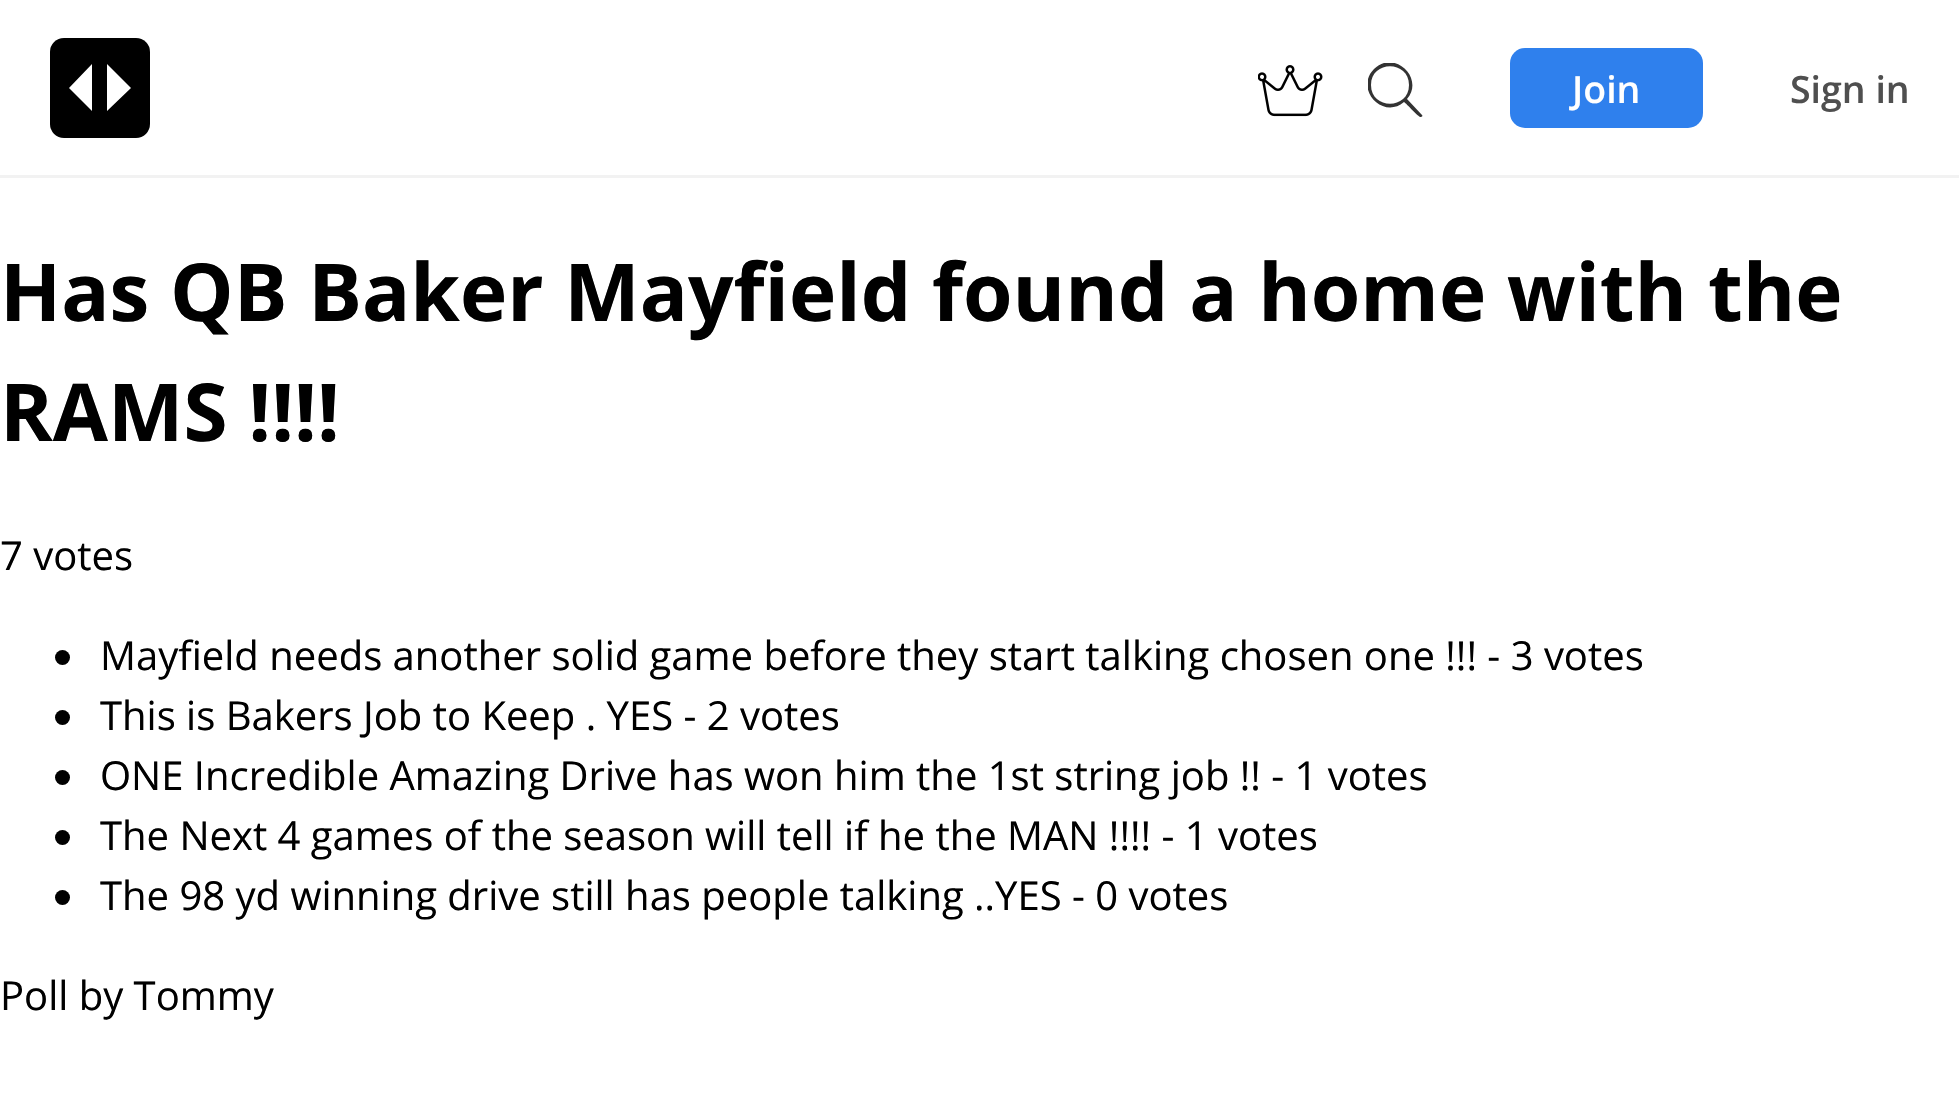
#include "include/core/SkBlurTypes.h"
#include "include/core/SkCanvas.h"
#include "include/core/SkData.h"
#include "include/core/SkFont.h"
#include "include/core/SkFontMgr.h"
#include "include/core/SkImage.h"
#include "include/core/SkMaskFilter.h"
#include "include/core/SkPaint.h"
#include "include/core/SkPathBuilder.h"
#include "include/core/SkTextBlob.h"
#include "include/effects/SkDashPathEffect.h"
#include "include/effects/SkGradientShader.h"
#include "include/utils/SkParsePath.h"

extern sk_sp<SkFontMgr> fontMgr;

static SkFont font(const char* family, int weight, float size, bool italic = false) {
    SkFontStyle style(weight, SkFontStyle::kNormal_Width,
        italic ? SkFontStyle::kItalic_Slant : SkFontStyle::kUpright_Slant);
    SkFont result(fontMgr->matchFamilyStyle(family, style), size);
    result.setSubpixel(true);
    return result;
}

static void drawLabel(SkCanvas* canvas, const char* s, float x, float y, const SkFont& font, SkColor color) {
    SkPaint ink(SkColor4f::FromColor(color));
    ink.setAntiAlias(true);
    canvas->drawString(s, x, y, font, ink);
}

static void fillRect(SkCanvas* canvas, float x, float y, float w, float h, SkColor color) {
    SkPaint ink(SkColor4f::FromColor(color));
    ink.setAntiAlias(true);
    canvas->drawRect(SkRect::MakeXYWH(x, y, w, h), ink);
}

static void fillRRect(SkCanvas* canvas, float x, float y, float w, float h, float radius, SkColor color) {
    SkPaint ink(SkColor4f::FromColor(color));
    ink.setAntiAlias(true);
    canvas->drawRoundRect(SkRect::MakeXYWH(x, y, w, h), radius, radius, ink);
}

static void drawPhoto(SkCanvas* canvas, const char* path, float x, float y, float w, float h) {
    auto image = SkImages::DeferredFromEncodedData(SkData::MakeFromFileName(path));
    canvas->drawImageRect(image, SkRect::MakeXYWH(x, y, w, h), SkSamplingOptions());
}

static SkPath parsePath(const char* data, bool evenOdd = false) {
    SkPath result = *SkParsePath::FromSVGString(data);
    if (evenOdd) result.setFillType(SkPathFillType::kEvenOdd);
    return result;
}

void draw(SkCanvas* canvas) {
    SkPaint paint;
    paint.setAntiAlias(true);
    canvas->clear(0xFFFFFFFF);
    fillRect(canvas, 0, 175, 1959, 3, 0xFFF2F2F2);
    fillRRect(canvas, 50, 38, 100, 100, 14, 0xFF000000);
    paint.setColor(0xFFFFFFFF);
    canvas->drawPath(parsePath("M92 64V111L69 88ZM107 64V111L131 88Z"), paint);
    drawPhoto(canvas, "assets/img1.png", 1258, 65, 65, 52);
    canvas->save();
    canvas->clipRect(SkRect::MakeXYWH(1368, 63, 55, 55));
    paint.setColor(0xFF333333);
    canvas->drawPath(parsePath("M1409 85C1409 60 1371 60 1371 85C1371 110 1409 110 1409 85ZM1404 102C1383 120 1354 89 1374 69C1394 49 1425 78 1407 99L1422 115C1423 116 1422 117 1421 117C1419 118 1407 104 1404 102Z"), paint);
    canvas->restore();
    fillRRect(canvas, 1510, 48, 193, 80, 15, 0xFF2F80ED);
    SkFont font1 = font("Open Sans", 600, 37.5f);
    drawLabel(canvas, "Join", 1572, 103, font1, 0xFFFFFFFF);
    drawLabel(canvas, "Sign in", 1790, 103, font1, 0xFF4F4F4F);
    SkFont font2 = font("Open Sans", 700, 80);
    drawLabel(canvas, "Has QB Baker Mayfield found a home with the", 0, 321, font2, 0xFF000000);
    drawLabel(canvas, "RAMS !!!!", 0, 441, font2, 0xFF000000);
    SkFont font3 = font("Open Sans", 400, 40);
    drawLabel(canvas, "7 votes", 0, 570, font3, 0xFF000000);
    paint.setColor(0xFF000000);
    canvas->drawCircle(62.5f, 657.5f, 7.5f, paint);
    drawLabel(canvas, "Mayfield needs another solid game before they start talking chosen one !!! - 3 votes", 100, 670, font3, 0xFF000000);
    canvas->drawCircle(62.5f, 717.5f, 7.5f, paint);
    drawLabel(canvas, "This is Bakers Job to Keep . YES - 2 votes", 100, 730, font3, 0xFF000000);
    canvas->drawCircle(62.5f, 777.5f, 7.5f, paint);
    drawLabel(canvas, "ONE Incredible Amazing Drive has won him the 1st string job !! - 1 votes", 100, 790, font3, 0xFF000000);
    canvas->drawCircle(62.5f, 837.5f, 7.5f, paint);
    drawLabel(canvas, "The Next 4 games of the season will tell if he the MAN !!!! - 1 votes", 100, 850, font3, 0xFF000000);
    canvas->drawCircle(62.5f, 897.5f, 7.5f, paint);
    drawLabel(canvas, "The 98 yd winning drive still has people talking ..YES - 0 votes", 100, 910, font3, 0xFF000000);
    drawLabel(canvas, "Poll by Tommy", 0, 1010, font3, 0xFF000000);
}
